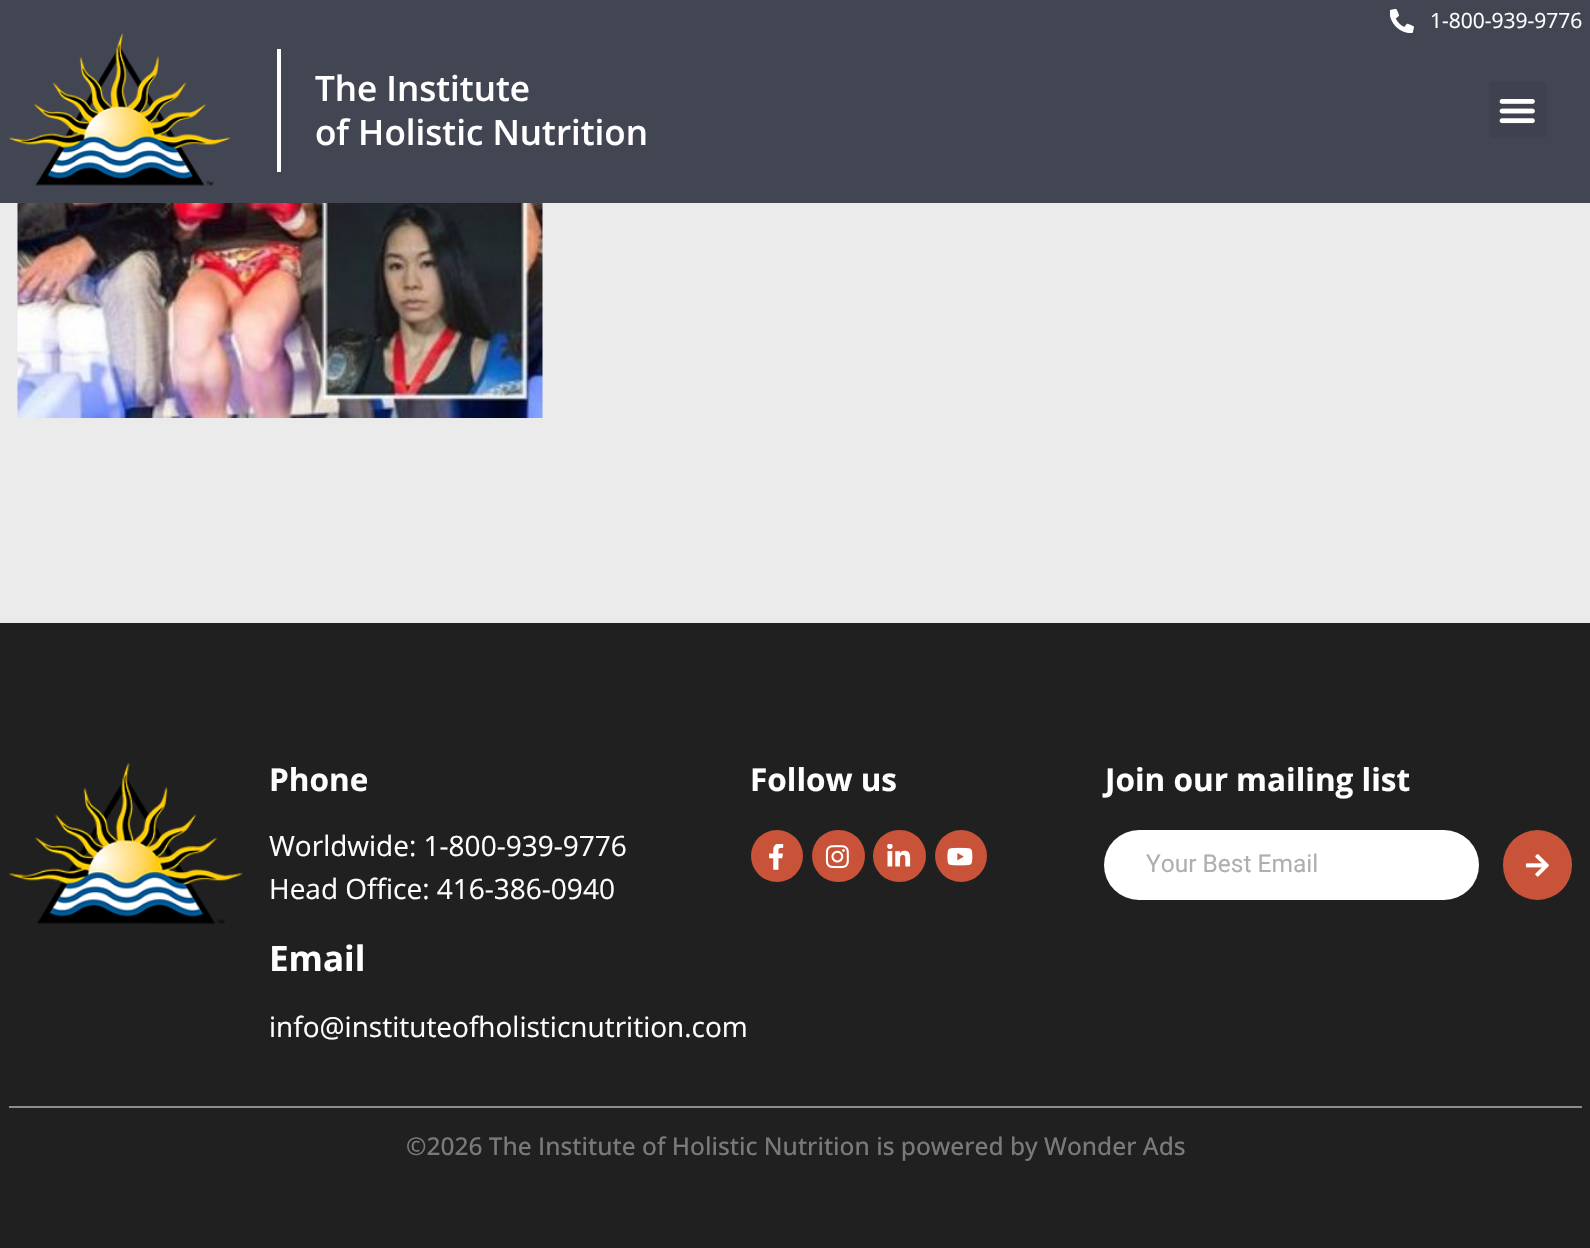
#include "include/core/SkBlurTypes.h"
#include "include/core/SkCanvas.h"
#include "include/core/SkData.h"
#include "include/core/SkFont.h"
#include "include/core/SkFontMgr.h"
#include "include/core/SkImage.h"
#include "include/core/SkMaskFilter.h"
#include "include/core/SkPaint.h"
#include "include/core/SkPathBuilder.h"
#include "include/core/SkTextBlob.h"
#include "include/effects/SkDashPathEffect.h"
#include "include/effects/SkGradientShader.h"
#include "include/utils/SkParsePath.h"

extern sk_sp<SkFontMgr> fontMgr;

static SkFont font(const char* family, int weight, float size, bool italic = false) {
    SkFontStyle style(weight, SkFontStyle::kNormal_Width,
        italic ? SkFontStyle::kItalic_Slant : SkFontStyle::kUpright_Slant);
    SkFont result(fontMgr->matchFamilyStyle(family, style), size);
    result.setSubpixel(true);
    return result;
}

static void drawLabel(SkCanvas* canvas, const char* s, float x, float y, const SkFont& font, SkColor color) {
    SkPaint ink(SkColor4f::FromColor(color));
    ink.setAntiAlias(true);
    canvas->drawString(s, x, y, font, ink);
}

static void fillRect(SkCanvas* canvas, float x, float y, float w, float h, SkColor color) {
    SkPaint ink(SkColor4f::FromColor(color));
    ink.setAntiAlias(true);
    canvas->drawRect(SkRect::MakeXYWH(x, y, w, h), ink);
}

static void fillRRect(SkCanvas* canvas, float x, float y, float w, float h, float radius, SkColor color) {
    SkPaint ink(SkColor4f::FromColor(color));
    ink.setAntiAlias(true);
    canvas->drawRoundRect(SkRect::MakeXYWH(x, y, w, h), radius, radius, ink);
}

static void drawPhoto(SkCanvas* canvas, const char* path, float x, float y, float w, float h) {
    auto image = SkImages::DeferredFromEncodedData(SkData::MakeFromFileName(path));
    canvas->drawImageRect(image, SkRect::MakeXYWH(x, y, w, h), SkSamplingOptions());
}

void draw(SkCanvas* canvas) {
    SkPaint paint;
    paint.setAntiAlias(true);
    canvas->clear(0xFFEBEBEB);
    fillRect(canvas, 0, 0, 1590, 203, 0xFF424552);
    drawPhoto(canvas, "assets/img1.png", 1390, 9, 24, 24);
    SkFont font1 = font("Open Sans", 400, 21);
    drawLabel(canvas, "1-800-939-9776", 1430, 28, font1, 0xFFFFFFFF);
    drawPhoto(canvas, "assets/img2.png", 8, 33, 223, 153);
    fillRect(canvas, 277, 49, 4, 123, 0xFFFFFFFF);
    SkFont font2 = font("Open Sans", 600, 35);
    drawLabel(canvas, "The Institute", 315, 101, font2, 0xFFFFFFFF);
    drawLabel(canvas, "of Holistic Nutrition", 315, 145, font2, 0xFFFFFFFF);
    fillRRect(canvas, 1489, 81, 58, 57, 5, 0xFF3F424E);
    drawPhoto(canvas, "assets/img3.png", 1499, 99, 36, 25);
    drawPhoto(canvas, "assets/img4.png", 17, 203, 526, 215);
    fillRect(canvas, 0, 623, 1590, 625, 0xFF202020);
    drawPhoto(canvas, "assets/img5.png", 8, 762, 235, 162);
    SkFont font3 = font("Open Sans", 700, 31.5f);
    drawLabel(canvas, "Phone", 269, 791, font3, 0xFFFFFFFF);
    SkFont font4 = font("Open Sans", 400, 28);
    drawLabel(canvas, "Worldwide: 1-800-939-9776", 269, 856, font4, 0xFFFFFFFF);
    drawLabel(canvas, "Head Office: 416-386-0940", 269, 899, font4, 0xFFFFFFFF);
    SkFont font5 = font("Open Sans", 700, 35);
    drawLabel(canvas, "Email", 269, 971, font5, 0xFFFFFFFF);
    drawLabel(canvas, "info@instituteofholisticnutrition.com", 269, 1037, font4, 0xFFFFFFFF);
    drawLabel(canvas, "Follow us", 750, 791, font3, 0xFFFFFFFF);
    paint.setColor(0xFFC85339);
    canvas->drawCircle(777, 856, 26, paint);
    drawPhoto(canvas, "assets/img6.png", 769, 844, 15, 26);
    fillRRect(canvas, 812, 830, 53, 52, 26, 0xFFC85339);
    drawPhoto(canvas, "assets/img7.png", 825, 845, 24, 24);
    fillRRect(canvas, 873, 830, 53, 52, 26, 0xFFC85339);
    drawPhoto(canvas, "assets/img8.png", 887, 844, 24, 23);
    canvas->drawCircle(961, 856, 26, paint);
    drawPhoto(canvas, "assets/img9.png", 947, 847, 26, 19);
    drawLabel(canvas, "Join our mailing list", 1105, 791, font3, 0xFFFFFFFF);
    fillRRect(canvas, 1104, 830, 375, 70, 35, 0xFFFFFFFF);
    SkFont font6 = font("Roboto", 400, 24.5f);
    drawLabel(canvas, "Your Best Email", 1146, 872, font6, 0xFFAFAFAF);
    fillRRect(canvas, 1503, 830, 69, 70, 34.5f, 0xFFC85339);
    drawPhoto(canvas, "assets/img10.png", 1525, 854, 24, 23);
    fillRect(canvas, 9, 1106, 1573, 2, 0xFF8D8D8D);
    SkFont font7 = font("Open Sans", 500, 24.5f);
    drawLabel(canvas, "©2026 The Institute of Holistic Nutrition is powered by Wonder Ads", 406, 1155, font7, 0xFF7A7A7A);
}
